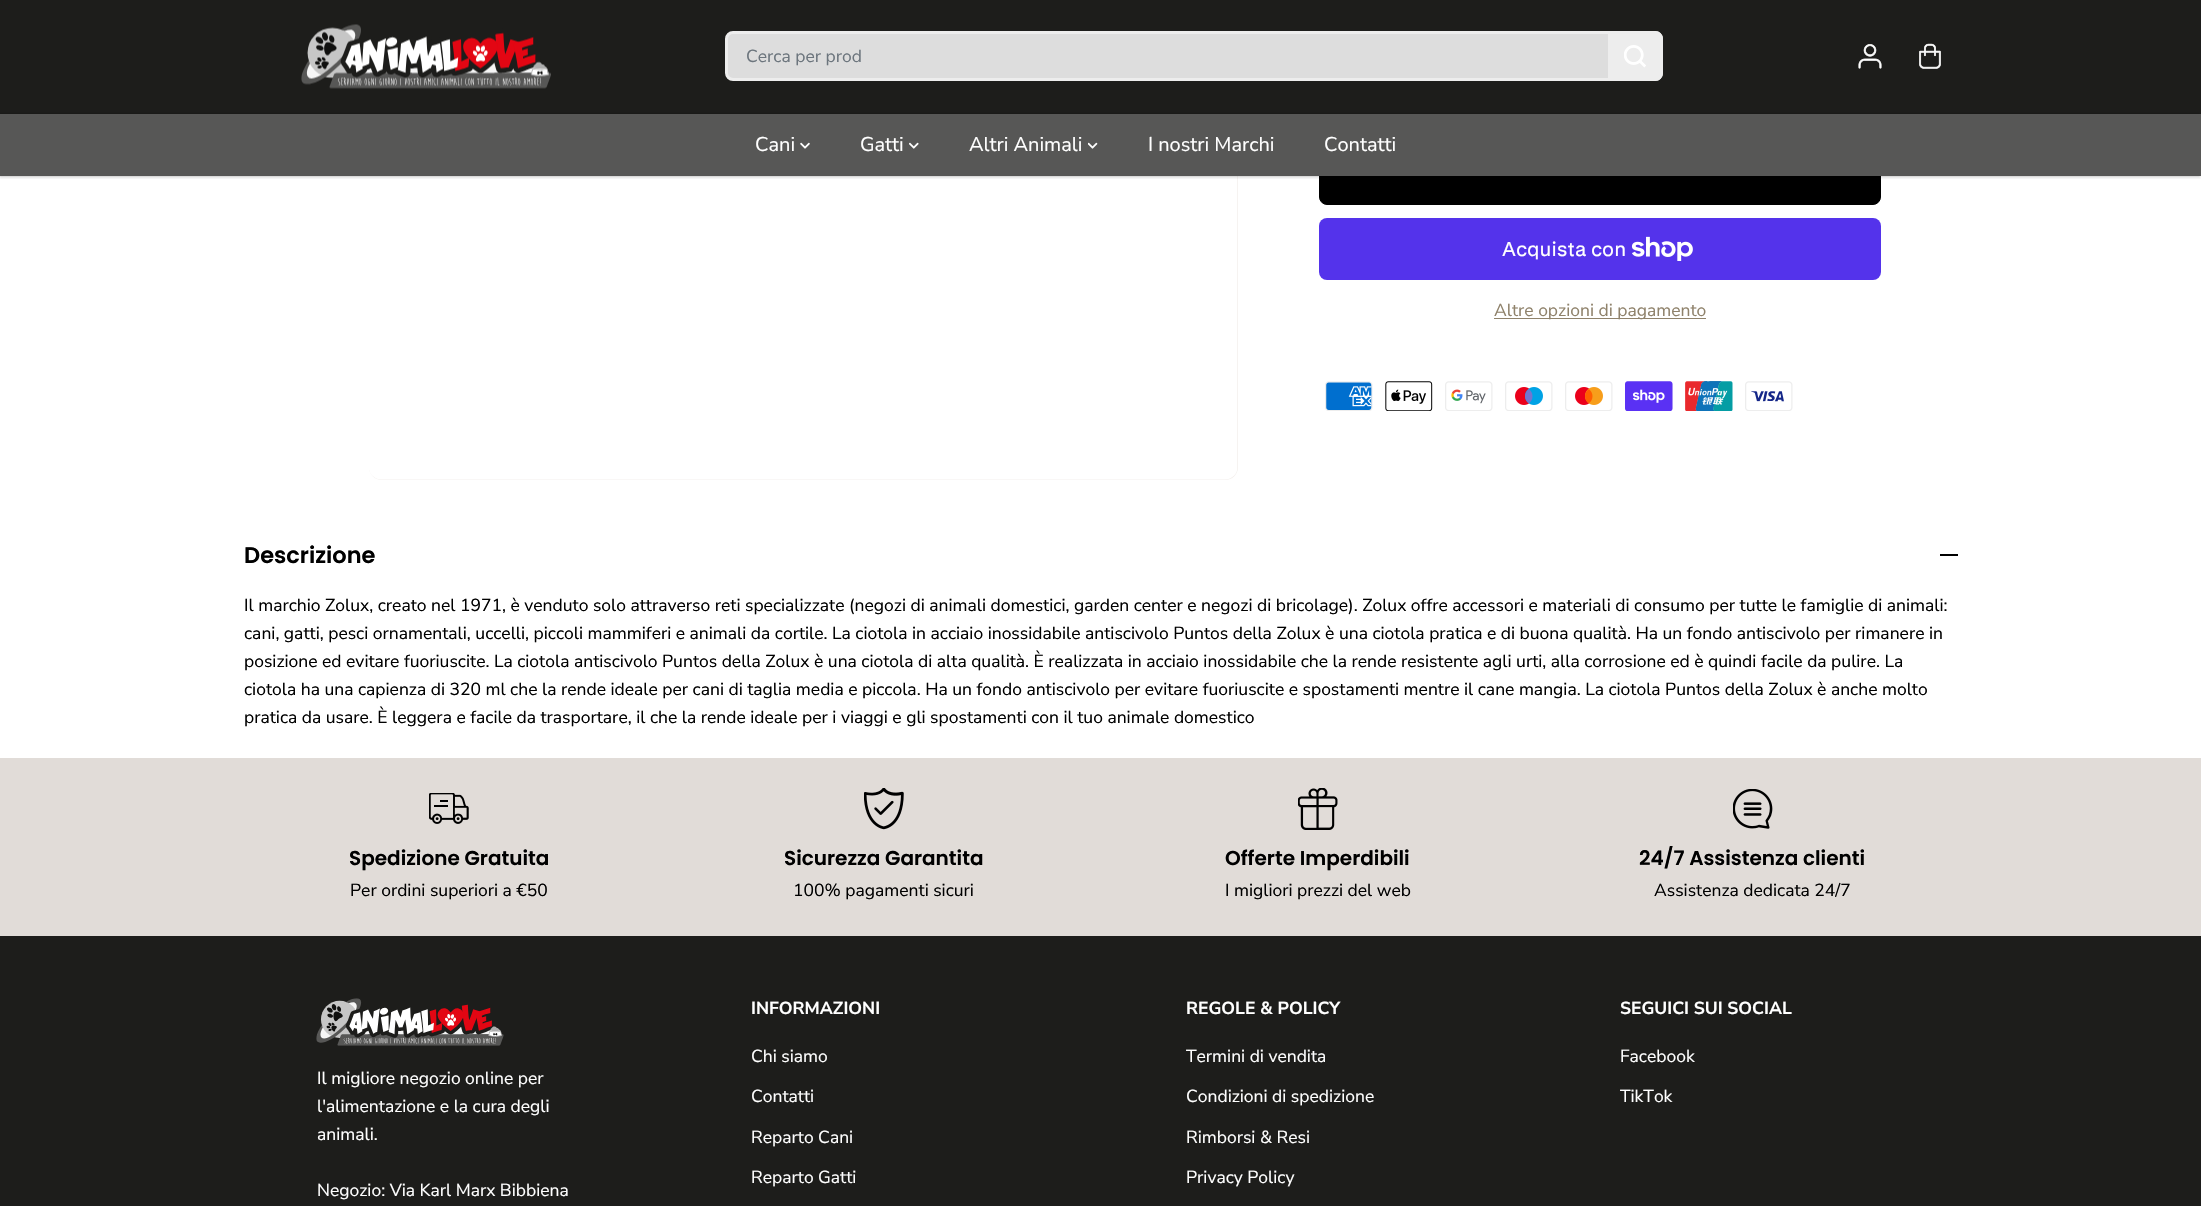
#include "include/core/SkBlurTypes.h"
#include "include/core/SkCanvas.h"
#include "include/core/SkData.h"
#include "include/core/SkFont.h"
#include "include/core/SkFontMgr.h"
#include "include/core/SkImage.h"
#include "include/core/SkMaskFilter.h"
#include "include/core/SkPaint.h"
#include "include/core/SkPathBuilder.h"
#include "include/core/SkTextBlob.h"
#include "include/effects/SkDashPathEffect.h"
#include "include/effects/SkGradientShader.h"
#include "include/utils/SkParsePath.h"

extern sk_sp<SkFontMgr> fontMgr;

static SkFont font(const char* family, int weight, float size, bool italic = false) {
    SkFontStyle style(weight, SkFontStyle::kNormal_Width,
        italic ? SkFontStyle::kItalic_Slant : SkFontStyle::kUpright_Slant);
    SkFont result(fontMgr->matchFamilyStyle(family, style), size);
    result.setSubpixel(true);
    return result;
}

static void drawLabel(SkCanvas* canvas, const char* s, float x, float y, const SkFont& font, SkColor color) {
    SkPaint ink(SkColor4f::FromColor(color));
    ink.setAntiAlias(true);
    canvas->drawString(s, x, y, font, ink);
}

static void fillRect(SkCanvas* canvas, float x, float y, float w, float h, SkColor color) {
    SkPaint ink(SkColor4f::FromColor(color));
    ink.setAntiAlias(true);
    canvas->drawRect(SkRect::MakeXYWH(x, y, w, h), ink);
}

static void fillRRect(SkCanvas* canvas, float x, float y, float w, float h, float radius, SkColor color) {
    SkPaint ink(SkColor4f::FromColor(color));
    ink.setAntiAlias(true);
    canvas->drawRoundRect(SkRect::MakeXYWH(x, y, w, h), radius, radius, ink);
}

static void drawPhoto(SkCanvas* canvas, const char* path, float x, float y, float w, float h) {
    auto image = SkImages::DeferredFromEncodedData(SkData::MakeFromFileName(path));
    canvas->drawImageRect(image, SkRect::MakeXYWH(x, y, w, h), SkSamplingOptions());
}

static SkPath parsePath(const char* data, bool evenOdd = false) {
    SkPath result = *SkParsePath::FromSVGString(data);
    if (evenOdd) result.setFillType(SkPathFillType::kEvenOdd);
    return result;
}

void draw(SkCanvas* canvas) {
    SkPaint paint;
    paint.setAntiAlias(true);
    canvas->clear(0xFFFFFFFF);
    fillRRect(canvas, 369, -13, 869, 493, 13, 0xFFF3EFEC);
    fillRect(canvas, 0, 0, 2201, 114, 0xFF1D1D1B);
    drawPhoto(canvas, "assets/img8.png", 369, 176, 869, 304);
    paint.setColor(0xFF000000);
    canvas->drawRoundRect(SkRect::MakeXYWH(1319.5f, 135.5f, 561, 69), 7.5f, 7.5f, paint);
    paint.setStroke(true);
    paint.setStrokeWidth(1);
    canvas->drawRoundRect(SkRect::MakeXYWH(1319.5f, 135.5f, 561, 69), 7.5f, 7.5f, paint);
    canvas->save();
    canvas->clipRect(SkRect::MakeXYWH(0, 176, 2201, 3));
    paint.setStroke(false);
    paint.setColor(0x0D000000);
    paint.setMaskFilter(SkMaskFilter::MakeBlur(kNormal_SkBlurStyle, 1));
    canvas->drawRect(SkRect::MakeXYWH(0, 3, 2201, 176), paint);
    paint.setMaskFilter(nullptr);
    canvas->restore();
    drawPhoto(canvas, "assets/img1.png", 301, 24, 250, 65);
    paint.setColor(0xFFDDDDDD);
    canvas->drawRoundRect(SkRect::MakeXYWH(726.5f, 32.5f, 935, 47), 6.5f, 6.5f, paint);
    paint.setStroke(true);
    paint.setStrokeWidth(3);
    paint.setColor(0xFFEDEDED);
    canvas->drawRoundRect(SkRect::MakeXYWH(726.5f, 32.5f, 935, 47), 6.5f, 6.5f, paint);
    SkFont font1 = font("Nunito Sans", 400, 17.5f);
    drawLabel(canvas, "Cerca per prod", 746, 62, font1, 0xFF6C757D);
    paint.setStroke(false);
    canvas->drawPath(parsePath("M1608 31H1655C1659.5 31 1663 34.5 1663 39V73C1663 77.5 1659.5 81 1655 81H1608Z"), paint);
    drawPhoto(canvas, "assets/img2.png", 1624, 45, 22, 23);
    drawPhoto(canvas, "assets/img3.png", 1858, 44, 24, 25);
    drawPhoto(canvas, "assets/img4.png", 1919, 43, 22, 26);
    paint.setColor(0x4D000000);
    paint.setMaskFilter(SkMaskFilter::MakeBlur(kNormal_SkBlurStyle, 1));
    canvas->drawRect(SkRect::MakeXYWH(-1, 114, 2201, 62), paint);
    paint.setMaskFilter(nullptr);
    fillRect(canvas, 0, 114, 2201, 62, 0xFF575756);
    SkFont font2 = font("Nunito Sans", 400, 20);
    drawLabel(canvas, "Cani", 755, 151, font2, 0xFFFFFFFF);
    drawPhoto(canvas, "assets/img5.png", 800, 142, 10, 7);
    drawLabel(canvas, "Gatti", 860, 151, font2, 0xFFFFFFFF);
    drawPhoto(canvas, "assets/img6.png", 909, 142, 10, 7);
    drawLabel(canvas, "Altri Animali", 969, 151, font2, 0xFFFFFFFF);
    drawPhoto(canvas, "assets/img7.png", 1088, 142, 10, 7);
    drawLabel(canvas, "I nostri Marchi", 1148, 151, font2, 0xFFFFFFFF);
    drawLabel(canvas, "Contatti", 1324, 151, font2, 0xFFFFFFFF);
    fillRRect(canvas, 1319, 218, 562, 62, 8, 0xFF5433EB);
    SkFont font3 = font("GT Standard", 400, 20);
    drawLabel(canvas, "Acquista con", 1502, 256, font3, 0xFFFFFFFF);
    drawPhoto(canvas, "assets/img9.png", 1631, 236, 62, 25);
    fillRect(canvas, 1494, 318, 212, 1, 0xFF8F826B);
    drawLabel(canvas, "Altre opzioni di pagamento", 1494, 316, font1, 0xFF8F826B);
    drawPhoto(canvas, "assets/img10.png", 1325, 381, 48, 30);
    drawPhoto(canvas, "assets/img11.png", 1385, 381, 48, 30);
    drawPhoto(canvas, "assets/img12.png", 1445, 381, 48, 30);
    drawPhoto(canvas, "assets/img13.png", 1505, 381, 48, 30);
    drawPhoto(canvas, "assets/img14.png", 1565, 381, 48, 30);
    drawPhoto(canvas, "assets/img15.png", 1625, 381, 48, 30);
    drawPhoto(canvas, "assets/img16.png", 1685, 381, 48, 30);
    drawPhoto(canvas, "assets/img17.png", 1745, 381, 48, 30);
    SkFont font4 = font("Poppins", 600, 22.5f);
    drawLabel(canvas, "Descrizione", 244, 563, font4, 0xFF000000);
    fillRect(canvas, 1940, 554, 18, 2, 0xFF000000);
    drawLabel(canvas, "Il marchio Zolux, creato nel 1971, è venduto solo attraverso reti specializzate (negozi di animali domestici, garden center e negozi di bricolage). Zolux offre accessori e materiali di consumo per tutte le famiglie di animali:", 244, 611, font1, 0xFF000000);
    drawLabel(canvas, "cani, gatti, pesci ornamentali, uccelli, piccoli mammiferi e animali da cortile. La ciotola in acciaio inossidabile antiscivolo Puntos della Zolux è una ciotola pratica e di buona qualità. Ha un fondo antiscivolo per rimanere in", 244, 639, font1, 0xFF000000);
    drawLabel(canvas, "posizione ed evitare fuoriuscite. La ciotola antiscivolo Puntos della Zolux è una ciotola di alta qualità. È realizzata in acciaio inossidabile che la rende resistente agli urti, alla corrosione ed è quindi facile da pulire. La", 244, 667, font1, 0xFF000000);
    drawLabel(canvas, "ciotola ha una capienza di 320 ml che la rende ideale per cani di taglia media e piccola. Ha un fondo antiscivolo per evitare fuoriuscite e spostamenti mentre il cane mangia. La ciotola Puntos della Zolux è anche molto", 244, 695, font1, 0xFF000000);
    drawLabel(canvas, "pratica da usare. È leggera e facile da trasportare, il che la rende ideale per i viaggi e gli spostamenti con il tuo animale domestico", 244, 723, font1, 0xFF000000);
    fillRect(canvas, 0, 758, 2201, 178, 0xFFE1DCD8);
    drawPhoto(canvas, "assets/img18.png", 429, 793, 40, 31);
    SkFont font5 = font("Poppins", 600, 20);
    drawLabel(canvas, "Spedizione Gratuita", 349, 865, font5, 0xFF000000);
    drawLabel(canvas, "Per ordini superiori a €50", 350, 896, font1, 0xFF000000);
    drawPhoto(canvas, "assets/img19.png", 864, 788, 40, 42);
    drawLabel(canvas, "Sicurezza Garantita", 784, 865, font5, 0xFF000000);
    drawLabel(canvas, "100% pagamenti sicuri", 793, 896, font1, 0xFF000000);
    drawPhoto(canvas, "assets/img20.png", 1298, 788, 40, 42);
    drawLabel(canvas, "Offerte Imperdibili", 1225, 865, font5, 0xFF000000);
    drawLabel(canvas, "I migliori prezzi del web", 1225, 896, font1, 0xFF000000);
    drawPhoto(canvas, "assets/img21.png", 1733, 789, 40, 40);
    drawLabel(canvas, "24/7 Assistenza clienti", 1639, 865, font5, 0xFF000000);
    drawLabel(canvas, "Assistenza dedicata 24/7", 1654, 896, font1, 0xFF000000);
    fillRect(canvas, 0, 936, 2201, 270, 0xFF1D1D1B);
    SkFont font6 = font("Nunito Sans", 700, 17.5f);
    drawLabel(canvas, "INFORMAZIONI", 751, 1014, font6, 0xFFFFFFFF);
    drawLabel(canvas, "Chi siamo", 751, 1062, font1, 0xFFFFFFFF);
    drawLabel(canvas, "Contatti", 751, 1102, font1, 0xFFFFFFFF);
    drawLabel(canvas, "Reparto Cani", 751, 1143, font1, 0xFFFFFFFF);
    drawLabel(canvas, "Reparto Gatti", 751, 1183, font1, 0xFFFFFFFF);
    drawLabel(canvas, "REGOLE & POLICY", 1186, 1014, font6, 0xFFFFFFFF);
    drawLabel(canvas, "Termini di vendita", 1186, 1062, font1, 0xFFFFFFFF);
    drawLabel(canvas, "Condizioni di spedizione", 1186, 1102, font1, 0xFFFFFFFF);
    drawLabel(canvas, "Rimborsi & Resi", 1186, 1143, font1, 0xFFFFFFFF);
    drawLabel(canvas, "Privacy Policy", 1186, 1183, font1, 0xFFFFFFFF);
    drawLabel(canvas, "SEGUICI SUI SOCIAL", 1620, 1014, font6, 0xFFFFFFFF);
    drawLabel(canvas, "Facebook", 1620, 1062, font1, 0xFFFFFFFF);
    drawLabel(canvas, "TikTok", 1620, 1102, font1, 0xFFFFFFFF);
    drawPhoto(canvas, "assets/img22.png", 316, 998, 188, 48);
    drawLabel(canvas, "Il migliore negozio online per", 317, 1084, font1, 0xFFFFFFFF);
    drawLabel(canvas, "l'alimentazione e la cura degli", 317, 1112, font1, 0xFFFFFFFF);
    drawLabel(canvas, "animali.", 317, 1140, font1, 0xFFFFFFFF);
    drawLabel(canvas, "Negozio: Via Karl Marx Bibbiena", 317, 1196, font1, 0xFFFFFFFF);
}
